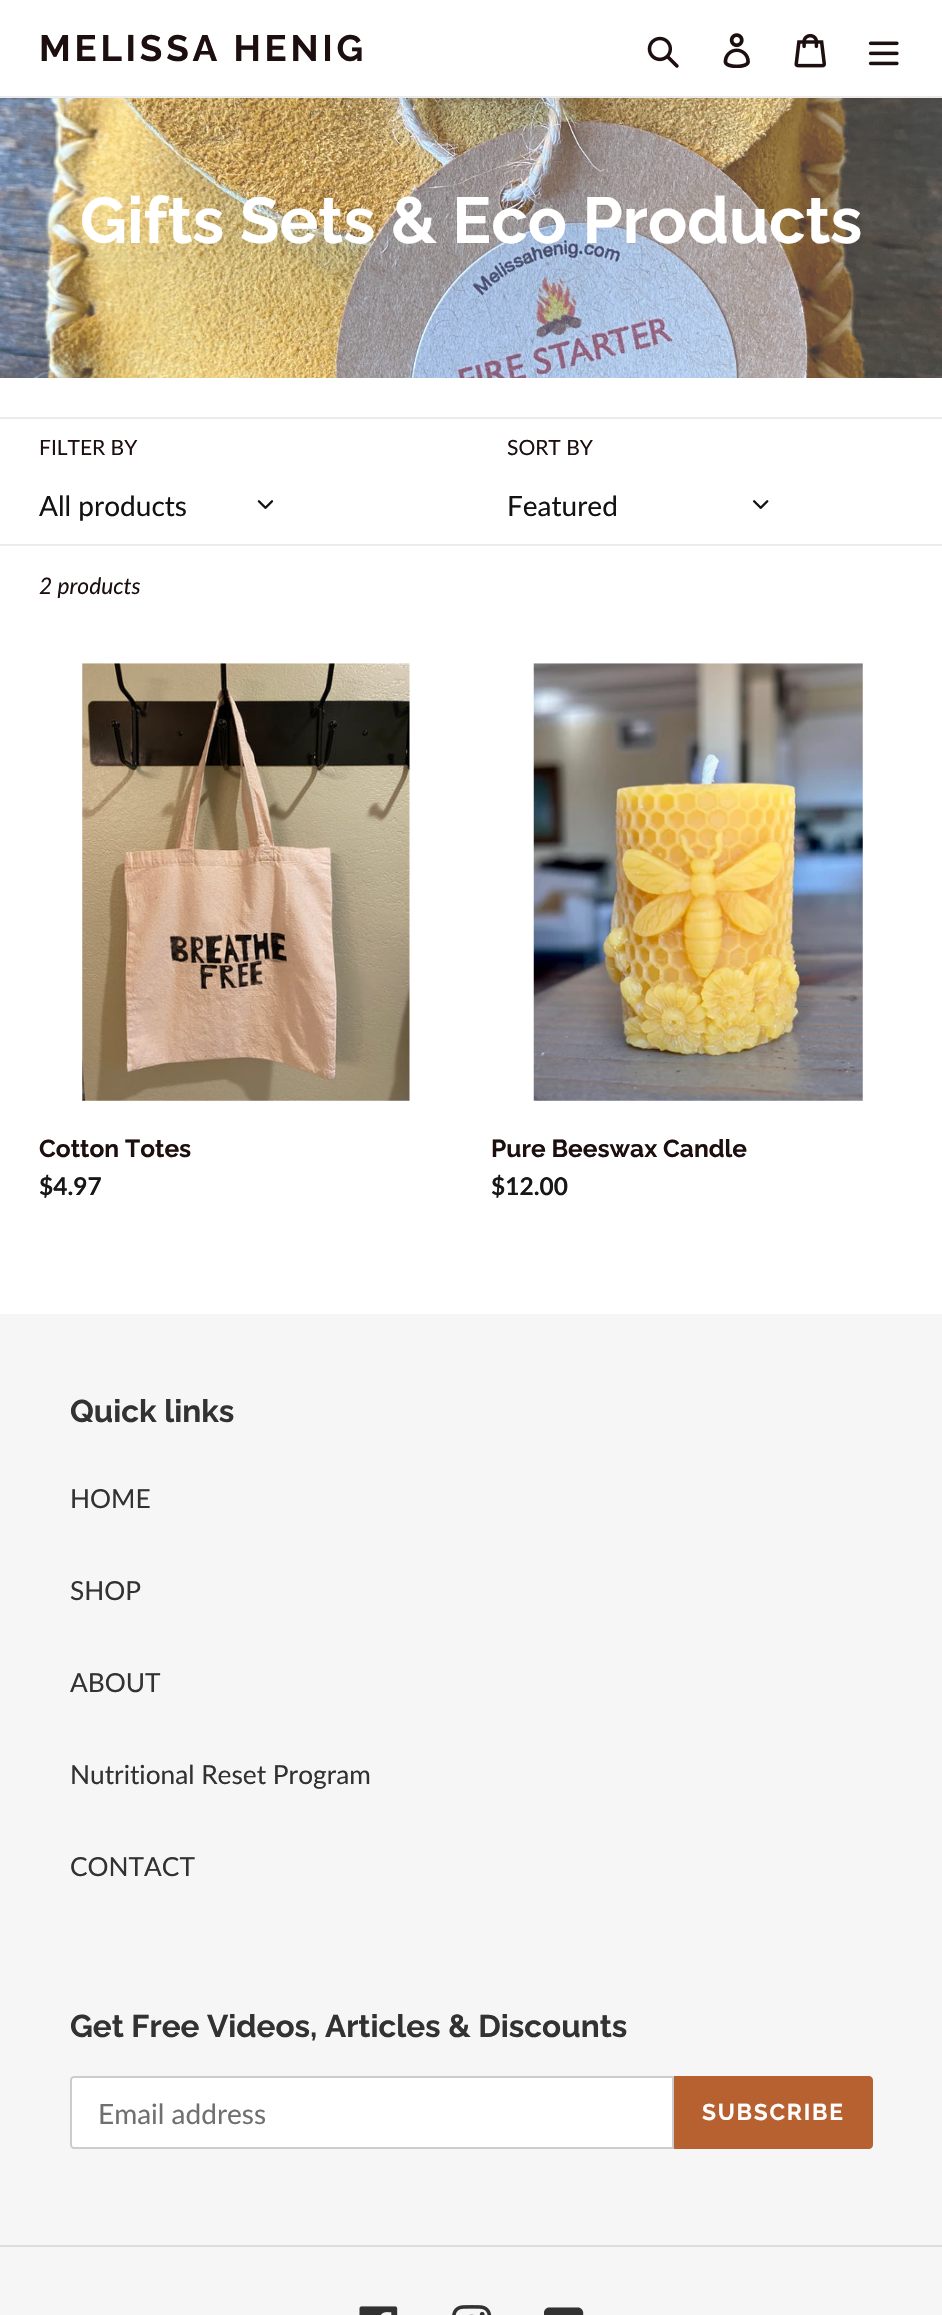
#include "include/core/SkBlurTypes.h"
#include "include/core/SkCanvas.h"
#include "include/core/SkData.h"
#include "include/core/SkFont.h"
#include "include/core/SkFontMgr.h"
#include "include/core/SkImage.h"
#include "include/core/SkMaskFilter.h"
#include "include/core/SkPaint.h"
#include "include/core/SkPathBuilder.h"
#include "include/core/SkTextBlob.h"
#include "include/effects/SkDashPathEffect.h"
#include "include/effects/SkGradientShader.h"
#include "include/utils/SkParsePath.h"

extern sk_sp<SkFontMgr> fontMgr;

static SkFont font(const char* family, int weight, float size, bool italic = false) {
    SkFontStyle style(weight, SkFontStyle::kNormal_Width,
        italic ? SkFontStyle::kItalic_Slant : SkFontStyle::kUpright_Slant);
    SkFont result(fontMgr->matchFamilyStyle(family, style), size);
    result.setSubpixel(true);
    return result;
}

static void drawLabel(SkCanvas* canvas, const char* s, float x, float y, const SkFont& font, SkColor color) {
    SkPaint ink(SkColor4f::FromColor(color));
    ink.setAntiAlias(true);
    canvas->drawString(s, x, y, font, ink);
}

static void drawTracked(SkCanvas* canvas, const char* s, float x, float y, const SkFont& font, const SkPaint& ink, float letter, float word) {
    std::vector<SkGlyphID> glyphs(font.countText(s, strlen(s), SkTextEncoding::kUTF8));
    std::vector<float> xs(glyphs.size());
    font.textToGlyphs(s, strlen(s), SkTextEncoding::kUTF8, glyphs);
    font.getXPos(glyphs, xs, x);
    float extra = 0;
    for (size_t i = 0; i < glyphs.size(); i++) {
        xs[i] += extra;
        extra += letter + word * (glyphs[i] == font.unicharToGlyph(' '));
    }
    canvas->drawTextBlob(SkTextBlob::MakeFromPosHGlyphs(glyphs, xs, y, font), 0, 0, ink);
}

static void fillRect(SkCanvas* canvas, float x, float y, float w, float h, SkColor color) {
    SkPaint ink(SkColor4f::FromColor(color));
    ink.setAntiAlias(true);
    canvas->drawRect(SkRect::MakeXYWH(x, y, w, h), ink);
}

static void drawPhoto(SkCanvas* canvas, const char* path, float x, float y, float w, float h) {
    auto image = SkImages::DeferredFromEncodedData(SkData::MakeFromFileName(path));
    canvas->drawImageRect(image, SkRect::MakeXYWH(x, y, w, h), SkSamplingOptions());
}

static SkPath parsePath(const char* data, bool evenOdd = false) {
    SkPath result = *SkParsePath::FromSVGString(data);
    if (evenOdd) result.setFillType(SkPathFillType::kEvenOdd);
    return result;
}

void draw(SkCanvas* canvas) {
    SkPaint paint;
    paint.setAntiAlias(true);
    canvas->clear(0xFFFFFFFF);
    fillRect(canvas, 0, 96, 942, 2, 0xFFEBEBEB);
    SkFont font1 = font("Raleway", 700, 36.75f);
    paint.setColor(0xFF1D0F0F);
    drawTracked(canvas, "MELISSA HENIG", 39, 61, font1, paint, 3.75f, 0);
    drawPhoto(canvas, "assets/img1.png", 647, 36, 32, 32);
    drawPhoto(canvas, "assets/img2.png", 723, 33, 27, 35);
    drawPhoto(canvas, "assets/img3.png", 794, 33, 32, 35);
    drawPhoto(canvas, "assets/img4.png", 868, 41, 31, 25);
    drawPhoto(canvas, "assets/img5.png", 0, 98, 942, 280);
    SkFont font2 = font("Raleway", 700, 64.75f);
    drawLabel(canvas, "Gifts Sets & Eco Products", 80, 243, font2, 0xFFFFFFFF);
    fillRect(canvas, 0, 417, 942, 2, 0xFFEBEBEB);
    SkFont font3 = font("Lato", 400, 21);
    drawLabel(canvas, "FILTER BY", 39, 455, font3, 0xFF1D0F0F);
    SkFont font4 = font("Lato", 400, 28);
    drawLabel(canvas, "All products", 39, 516, font4, 0xFF131111);
    drawPhoto(canvas, "assets/img6.png", 257, 500, 16, 9);
    drawLabel(canvas, "SORT BY", 507, 455, font3, 0xFF1D0F0F);
    drawLabel(canvas, "Featured", 507, 516, font4, 0xFF131111);
    drawPhoto(canvas, "assets/img7.png", 753, 500, 16, 9);
    fillRect(canvas, 0, 544, 942, 2, 0xFFEBEBEB);
    SkFont font5 = font("Lato", 400, 22.75f, true);
    drawLabel(canvas, "2 products", 39, 594, font5, 0xFF1D0F0F);
    drawPhoto(canvas, "assets/img8.png", 82, 663, 328, 438);
    SkFont font6 = font("Raleway", 700, 24.5f);
    drawLabel(canvas, "Cotton Totes", 39, 1157, font6, 0xFF1D0F0F);
    SkFont font7 = font("Lato", 700, 24.5f);
    drawLabel(canvas, "$4.97", 39, 1195, font7, 0xFF191717);
    drawPhoto(canvas, "assets/img9.png", 533, 663, 330, 438);
    drawLabel(canvas, "Pure Beeswax Candle", 491, 1157, font6, 0xFF1D0F0F);
    drawLabel(canvas, "$12.00", 491, 1195, font7, 0xFF191717);
    fillRect(canvas, 0, 1314, 942, 1001, 0xFFF6F6F6);
    SkFont font8 = font("Raleway", 700, 31.5f);
    drawLabel(canvas, "Quick links", 70, 1422, font8, 0xFF333232);
    SkFont font9 = font("Lato", 400, 26.25f);
    drawLabel(canvas, "HOME", 70, 1508, font9, 0xFF333232);
    drawLabel(canvas, "SHOP", 70, 1600, font9, 0xFF333232);
    drawLabel(canvas, "ABOUT", 70, 1692, font9, 0xFF333232);
    drawLabel(canvas, "Nutritional Reset Program", 70, 1784, font9, 0xFF333232);
    drawLabel(canvas, "CONTACT", 70, 1876, font9, 0xFF333232);
    drawLabel(canvas, "Get Free Videos, Articles & Discounts", 70, 2037, font8, 0xFF333232);
    paint.setColor(0xFFFFFFFF);
    canvas->drawPath(parsePath("M74 2077H673V2148H74C72.5 2148 71 2146.5 71 2145V2080C71 2078.5 72.5 2077 74 2077Z"), paint);
    paint.setStroke(true);
    paint.setStrokeWidth(2);
    paint.setColor(0xFFCCCCCC);
    canvas->drawPath(parsePath("M74 2077H673V2148H74C72.5 2148 71 2146.5 71 2145V2080C71 2078.5 72.5 2077 74 2077Z"), paint);
    drawLabel(canvas, "Email address", 98, 2124, font4, 0xFF717070);
    paint.setStroke(false);
    paint.setColor(0xFFB76130);
    canvas->drawPath(parsePath("M674 2076H869C871 2076 873 2078 873 2080V2145C873 2147 871 2149 869 2149H674Z"), paint);
    SkFont font10 = font("Raleway", 700, 22.75f);
    paint.setColor(0xFFFFFFFF);
    drawTracked(canvas, "SUBSCRIBE", 702, 2120, font10, paint, 1.75f, 0);
    fillRect(canvas, 0, 2245, 942, 2, 0xFFDDDDDD);
    drawPhoto(canvas, "assets/img10.png", 359, 2306, 39, 9);
    drawPhoto(canvas, "assets/img11.png", 452, 2305, 40, 10);
    drawPhoto(canvas, "assets/img12.png", 544, 2307, 40, 8);
}
